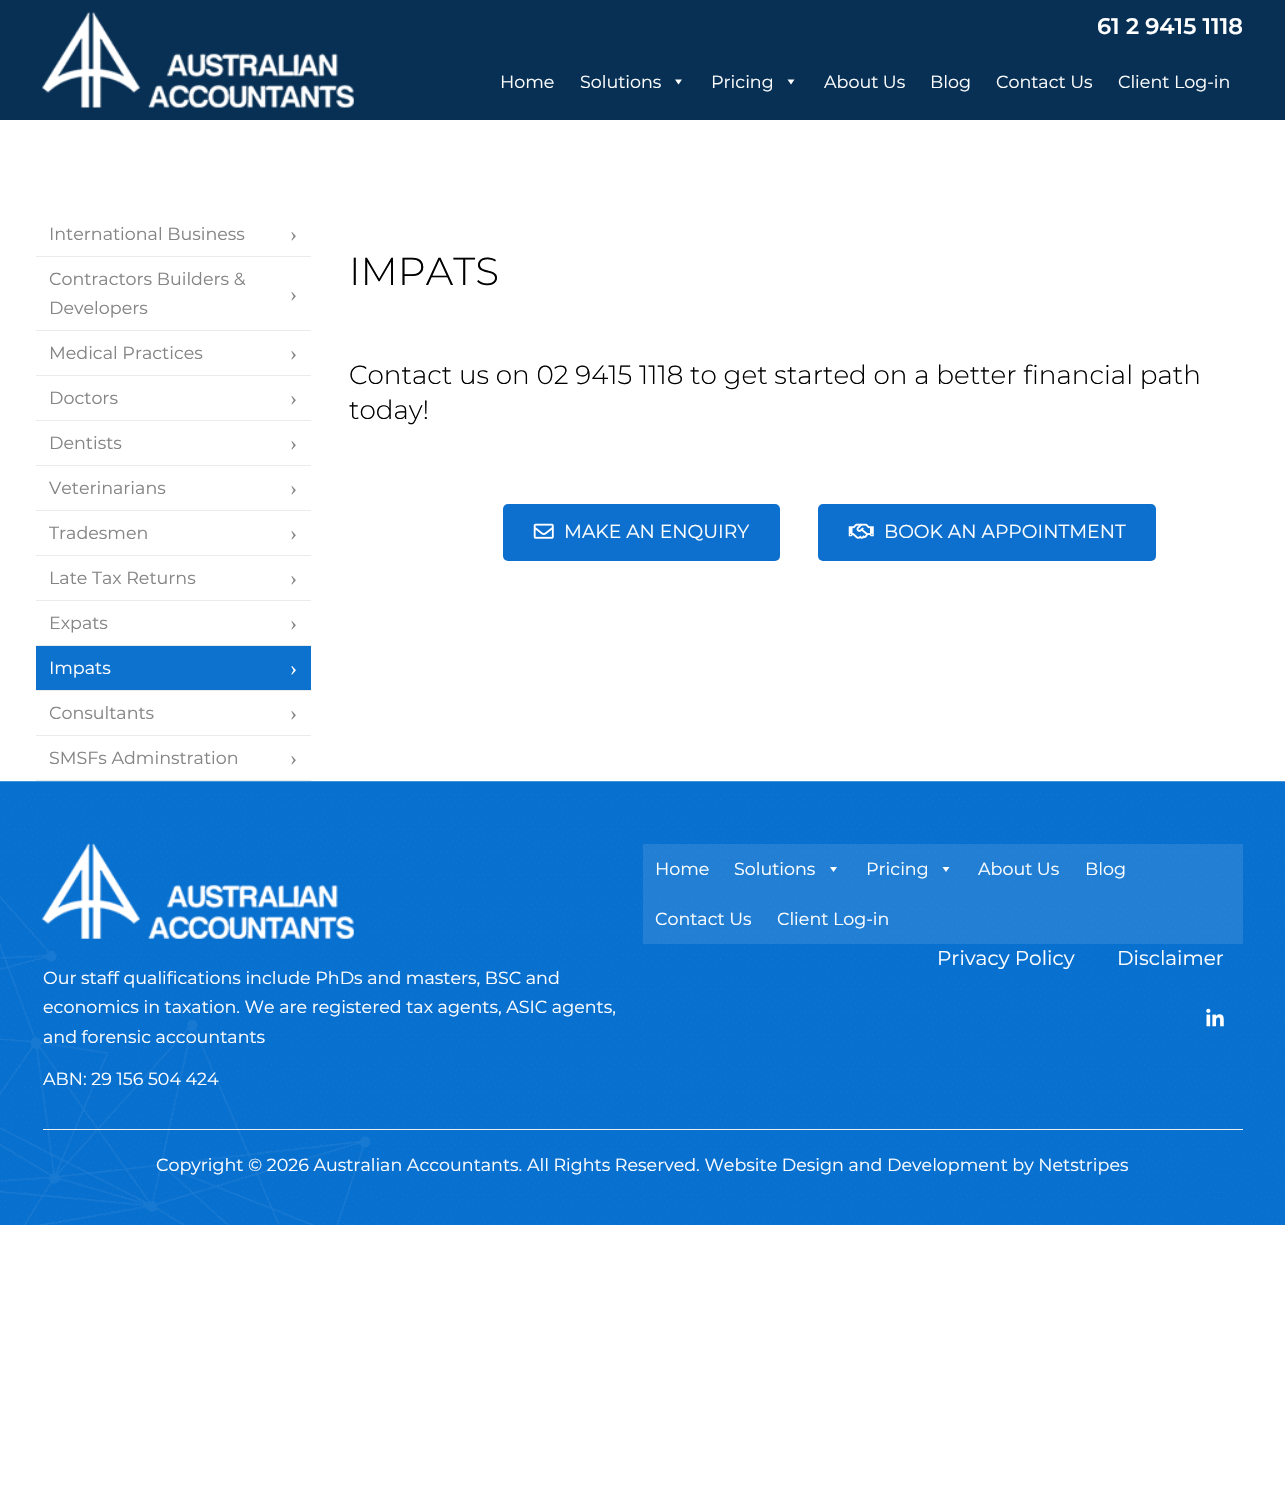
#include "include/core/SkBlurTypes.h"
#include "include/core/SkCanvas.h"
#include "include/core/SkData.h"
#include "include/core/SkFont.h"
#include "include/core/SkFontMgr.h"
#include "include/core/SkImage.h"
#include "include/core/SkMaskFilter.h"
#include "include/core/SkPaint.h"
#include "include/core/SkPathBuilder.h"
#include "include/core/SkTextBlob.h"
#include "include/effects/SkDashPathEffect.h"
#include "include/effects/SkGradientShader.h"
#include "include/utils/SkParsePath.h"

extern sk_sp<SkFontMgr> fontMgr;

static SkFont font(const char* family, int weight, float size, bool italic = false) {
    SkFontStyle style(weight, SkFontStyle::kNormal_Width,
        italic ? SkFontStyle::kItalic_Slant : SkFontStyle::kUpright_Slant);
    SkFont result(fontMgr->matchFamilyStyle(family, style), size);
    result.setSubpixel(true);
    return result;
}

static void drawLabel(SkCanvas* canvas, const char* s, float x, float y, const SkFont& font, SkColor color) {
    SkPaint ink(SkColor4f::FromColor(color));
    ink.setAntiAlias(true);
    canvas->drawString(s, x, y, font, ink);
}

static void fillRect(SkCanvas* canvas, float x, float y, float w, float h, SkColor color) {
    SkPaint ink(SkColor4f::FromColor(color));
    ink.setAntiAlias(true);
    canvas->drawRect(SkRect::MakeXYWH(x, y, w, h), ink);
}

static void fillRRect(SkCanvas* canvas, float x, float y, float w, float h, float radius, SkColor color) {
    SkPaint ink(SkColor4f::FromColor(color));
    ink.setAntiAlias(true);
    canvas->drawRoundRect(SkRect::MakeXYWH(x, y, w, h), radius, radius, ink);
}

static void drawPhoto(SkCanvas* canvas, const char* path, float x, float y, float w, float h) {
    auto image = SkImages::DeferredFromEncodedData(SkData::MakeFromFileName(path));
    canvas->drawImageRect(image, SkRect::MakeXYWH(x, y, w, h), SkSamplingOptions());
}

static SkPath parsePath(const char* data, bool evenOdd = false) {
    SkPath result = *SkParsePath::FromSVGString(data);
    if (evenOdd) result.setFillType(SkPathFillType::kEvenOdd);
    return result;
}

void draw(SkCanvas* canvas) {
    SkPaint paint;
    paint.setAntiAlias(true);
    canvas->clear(0xFFFFFFFF);
    fillRect(canvas, 0, 0, 1285, 120, 0xFF073054);
    drawPhoto(canvas, "assets/img1.png", 42, 12, 312, 96);
    SkFont font1 = font("Montserrat", 600, 22.5f);
    drawLabel(canvas, "61 2 9415 1118", 1097, 34, font1, 0xFFFFFFFF);
    SkFont font2 = font("Montserrat", 400, 17.5f);
    drawLabel(canvas, "Home", 500, 88, font2, 0xFFFFFFFF);
    drawLabel(canvas, "Solutions", 580, 88, font2, 0xFFFFFFFF);
    paint.setColor(0xFFFFFFFF);
    canvas->drawPath(parsePath("M682 79.5L678.5 84.5L675 79.5Z"), paint);
    drawLabel(canvas, "Pricing", 711, 88, font2, 0xFFFFFFFF);
    canvas->drawPath(parsePath("M794.5 79.5L791 84.5L787.5 79.5Z"), paint);
    drawLabel(canvas, "About Us", 824, 88, font2, 0xFFFFFFFF);
    drawLabel(canvas, "Blog", 930, 88, font2, 0xFFFFFFFF);
    drawLabel(canvas, "Contact Us", 996, 88, font2, 0xFFFFFFFF);
    drawLabel(canvas, "Client Log-in", 1118, 88, font2, 0xFFFFFFFF);
    fillRect(canvas, 36, 256, 275, 1, 0xFFEBEBEB);
    drawLabel(canvas, "International Business", 49, 240, font2, 0xFF848484);
    SkFont font3 = font("Liberation Serif", 400, 21);
    drawLabel(canvas, "›", 290, 241, font3, 0xFF848484);
    fillRect(canvas, 36, 330, 275, 1, 0xFFEBEBEB);
    drawLabel(canvas, "Contractors Builders &", 49, 285, font2, 0xFF848484);
    drawLabel(canvas, "›", 290, 301, font3, 0xFF848484);
    drawLabel(canvas, "Developers", 49, 314, font2, 0xFF848484);
    fillRect(canvas, 36, 375, 275, 1, 0xFFEBEBEB);
    drawLabel(canvas, "Medical Practices", 49, 359, font2, 0xFF848484);
    drawLabel(canvas, "›", 290, 360, font3, 0xFF848484);
    fillRect(canvas, 36, 420, 275, 1, 0xFFEBEBEB);
    drawLabel(canvas, "Doctors", 49, 404, font2, 0xFF848484);
    drawLabel(canvas, "›", 290, 405, font3, 0xFF848484);
    fillRect(canvas, 36, 465, 275, 1, 0xFFEBEBEB);
    drawLabel(canvas, "Dentists", 49, 449, font2, 0xFF848484);
    drawLabel(canvas, "›", 290, 450, font3, 0xFF848484);
    fillRect(canvas, 36, 510, 275, 1, 0xFFEBEBEB);
    drawLabel(canvas, "Veterinarians", 49, 494, font2, 0xFF848484);
    drawLabel(canvas, "›", 290, 495, font3, 0xFF848484);
    fillRect(canvas, 36, 555, 275, 1, 0xFFEBEBEB);
    drawLabel(canvas, "Tradesmen", 49, 539, font2, 0xFF848484);
    drawLabel(canvas, "›", 290, 540, font3, 0xFF848484);
    fillRect(canvas, 36, 600, 275, 1, 0xFFEBEBEB);
    drawLabel(canvas, "Late Tax Returns", 49, 584, font2, 0xFF848484);
    drawLabel(canvas, "›", 290, 585, font3, 0xFF848484);
    fillRect(canvas, 36, 645, 275, 1, 0xFFEBEBEB);
    drawLabel(canvas, "Expats", 49, 629, font2, 0xFF848484);
    drawLabel(canvas, "›", 290, 630, font3, 0xFF848484);
    fillRect(canvas, 36, 646, 275, 44, 0xFF0D71CE);
    fillRect(canvas, 36, 690, 275, 1, 0xFFEBEBEB);
    drawLabel(canvas, "Impats", 49, 674, font2, 0xFFFFFFFF);
    drawLabel(canvas, "›", 290, 675, font3, 0xFFFFFFFF);
    fillRect(canvas, 36, 735, 275, 1, 0xFFEBEBEB);
    drawLabel(canvas, "Consultants", 49, 719, font2, 0xFF848484);
    drawLabel(canvas, "›", 290, 720, font3, 0xFF848484);
    fillRect(canvas, 36, 780, 275, 1, 0xFFEBEBEB);
    drawLabel(canvas, "SMSFs Adminstration", 49, 764, font2, 0xFF848484);
    drawLabel(canvas, "›", 290, 765, font3, 0xFF848484);
    SkFont font4 = font("Montserrat", 300, 39);
    drawLabel(canvas, "IMPATS", 349, 285, font4, 0xFF000000);
    SkFont font5 = font("Montserrat", 300, 26.25f);
    drawLabel(canvas, "Contact us on 02 9415 1118 to get started on a better financial path", 349, 384, font5, 0xFF000000);
    drawLabel(canvas, "today!", 349, 419, font5, 0xFF000000);
    fillRRect(canvas, 503, 504, 277, 57, 5, 0xFF0D70CE);
    drawPhoto(canvas, "assets/img2.png", 533, 523, 21, 16);
    SkFont font6 = font("Montserrat", 400, 18.75f);
    drawLabel(canvas, "MAKE AN ENQUIRY", 564, 538, font6, 0xFFFFFFFF);
    fillRRect(canvas, 818, 504, 338, 57, 5, 0xFF0D70CE);
    drawPhoto(canvas, "assets/img3.png", 848, 523, 26, 16);
    drawLabel(canvas, "BOOK AN APPOINTMENT", 884, 538, font6, 0xFFFFFFFF);
    drawPhoto(canvas, "assets/img4.png", 0, 781, 1285, 444);
    fillRect(canvas, 643, 844, 600, 100, 0x1AFFFFFF);
    drawLabel(canvas, "Home", 655, 875, font2, 0xFFFFFFFF);
    drawLabel(canvas, "Solutions", 734, 875, font2, 0xFFFFFFFF);
    canvas->drawPath(parsePath("M837 867L833.5 872L830 867Z"), paint);
    drawLabel(canvas, "Pricing", 866, 875, font2, 0xFFFFFFFF);
    canvas->drawPath(parsePath("M949.5 867L946 872L942.5 867Z"), paint);
    drawLabel(canvas, "About Us", 978, 875, font2, 0xFFFFFFFF);
    drawLabel(canvas, "Blog", 1085, 875, font2, 0xFFFFFFFF);
    drawLabel(canvas, "Contact Us", 655, 925, font2, 0xFFFFFFFF);
    drawLabel(canvas, "Client Log-in", 777, 925, font2, 0xFFFFFFFF);
    SkFont font7 = font("Montserrat", 400, 20);
    drawLabel(canvas, "Privacy Policy", 937, 965, font7, 0xFFFFFFFF);
    drawLabel(canvas, "Disclaimer", 1117, 965, font7, 0xFFFFFFFF);
    drawPhoto(canvas, "assets/img5.png", 1206, 1008, 18, 19);
    drawPhoto(canvas, "assets/img6.png", 42, 843, 312, 96);
    drawLabel(canvas, "Our staff qualifications include PhDs and masters, BSC and", 43, 984, font2, 0xFFFFFFFF);
    drawLabel(canvas, "economics in taxation. We are registered tax agents, ASIC agents,", 43, 1013, font2, 0xFFFFFFFF);
    drawLabel(canvas, "and forensic accountants", 43, 1043, font2, 0xFFFFFFFF);
    drawLabel(canvas, "ABN: 29 156 504 424", 43, 1085, font2, 0xFFFFFFFF);
    fillRect(canvas, 43, 1129, 1200, 1, 0xFFEEEEEE);
    drawLabel(canvas, "Copyright © 2026 Australian Accountants. All Rights Reserved. Website Design and Development by Netstripes", 156, 1171, font2, 0xFFFFFFFF);
}
